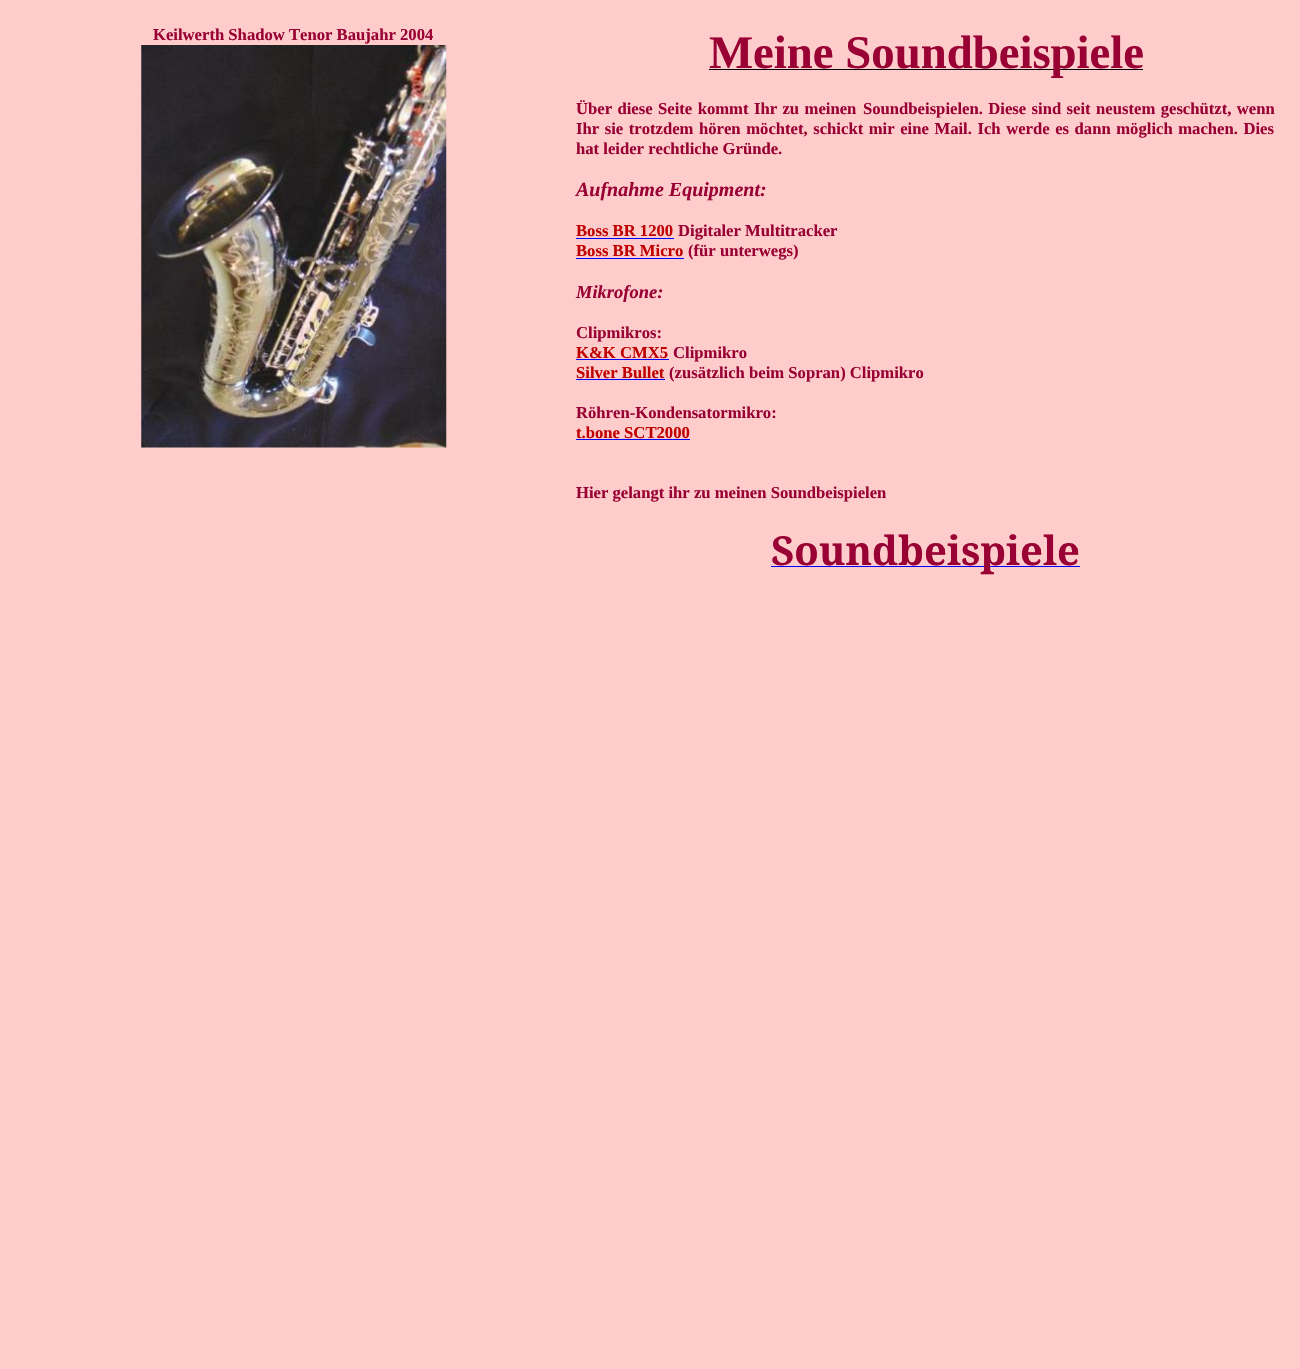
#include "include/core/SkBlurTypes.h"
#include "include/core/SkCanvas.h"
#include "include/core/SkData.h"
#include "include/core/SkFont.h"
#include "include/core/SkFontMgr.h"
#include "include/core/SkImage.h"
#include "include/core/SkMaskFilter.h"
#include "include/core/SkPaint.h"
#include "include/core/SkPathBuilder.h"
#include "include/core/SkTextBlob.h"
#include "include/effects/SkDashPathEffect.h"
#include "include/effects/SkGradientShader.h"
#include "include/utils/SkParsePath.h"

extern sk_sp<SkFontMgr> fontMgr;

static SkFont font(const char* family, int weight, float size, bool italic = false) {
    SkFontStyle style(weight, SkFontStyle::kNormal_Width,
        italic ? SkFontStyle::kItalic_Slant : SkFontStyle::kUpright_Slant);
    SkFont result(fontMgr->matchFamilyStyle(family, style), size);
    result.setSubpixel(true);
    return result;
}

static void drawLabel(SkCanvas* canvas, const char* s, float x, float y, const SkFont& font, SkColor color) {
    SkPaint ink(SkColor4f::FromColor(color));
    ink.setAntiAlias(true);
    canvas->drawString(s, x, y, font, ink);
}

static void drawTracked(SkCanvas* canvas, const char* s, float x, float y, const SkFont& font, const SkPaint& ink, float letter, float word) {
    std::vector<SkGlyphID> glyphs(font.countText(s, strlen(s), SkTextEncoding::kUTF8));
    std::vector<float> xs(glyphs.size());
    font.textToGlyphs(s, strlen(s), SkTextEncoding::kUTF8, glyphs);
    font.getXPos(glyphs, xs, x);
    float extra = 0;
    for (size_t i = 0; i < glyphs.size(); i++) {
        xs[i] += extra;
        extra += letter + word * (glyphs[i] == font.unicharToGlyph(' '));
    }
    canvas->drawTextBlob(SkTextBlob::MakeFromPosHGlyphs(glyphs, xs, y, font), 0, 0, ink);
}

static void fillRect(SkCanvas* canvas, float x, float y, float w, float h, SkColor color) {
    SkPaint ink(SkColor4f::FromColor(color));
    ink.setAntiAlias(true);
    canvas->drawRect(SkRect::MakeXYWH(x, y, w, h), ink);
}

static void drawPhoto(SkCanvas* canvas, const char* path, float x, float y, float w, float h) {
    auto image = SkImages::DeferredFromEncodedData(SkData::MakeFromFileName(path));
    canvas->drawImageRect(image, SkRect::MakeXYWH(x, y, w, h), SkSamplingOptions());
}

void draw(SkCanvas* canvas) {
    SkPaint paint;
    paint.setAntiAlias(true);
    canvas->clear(0xFFFFCCCC);
    SkFont font1 = font("Liberation Serif", 700, 16.65f);
    drawLabel(canvas, "Keilwerth Shadow Tenor Baujahr 2004", 153, 40, font1, 0xFF990033);
    drawPhoto(canvas, "assets/img1.png", 141, 45, 306, 403);
    fillRect(canvas, 709, 69, 434, 1, 0xFF000000);
    SkFont font2 = font("Liberation Serif", 700, 46.75f);
    drawLabel(canvas, "Meine Soundbeispiele", 709, 68, font2, 0xFF990033);
    paint.setColor(0xFF990033);
    drawTracked(canvas, "Über diese Seite kommt Ihr zu meinen", 576, 114, font1, paint, 0, 1.25f);
    drawTracked(canvas, "Soundbeispielen. Diese sind seit neustem geschützt, wenn", 863, 114, font1, paint, 0, 1.25f);
    drawTracked(canvas, "Ihr sie trotzdem", 576, 134, font1, paint, 0, 1.4f);
    drawTracked(canvas, "hören möchtet, schickt mir eine Mail. Ich werde es dann möglich machen. Dies", 699, 134, font1, paint, 0, 1.4f);
    drawLabel(canvas, "hat leider rechtliche Gründe.", 576, 154, font1, 0xFF990033);
    SkFont font3 = font("Liberation Serif", 700, 20, true);
    drawLabel(canvas, "Aufnahme Equipment:", 576, 196, font3, 0xFF990033);
    drawLabel(canvas, "Boss BR 1200", 576, 236, font1, 0xFFC00000);
    fillRect(canvas, 576, 238, 98, 1, 0xFF0000FF);
    drawLabel(canvas, "Digitaler Multitracker", 678, 236, font1, 0xFF990033);
    drawLabel(canvas, "Boss BR Micro", 576, 256, font1, 0xFFC00000);
    fillRect(canvas, 576, 258, 108, 1, 0xFF0000FF);
    drawLabel(canvas, "(für unterwegs)", 688, 256, font1, 0xFF990033);
    SkFont font4 = font("Liberation Serif", 700, 18.5f, true);
    drawLabel(canvas, "Mikrofone:", 576, 298, font4, 0xFF990033);
    drawLabel(canvas, "Clipmikros:", 576, 338, font1, 0xFF990033);
    drawLabel(canvas, "K&K CMX5", 576, 358, font1, 0xFFC00000);
    fillRect(canvas, 576, 359, 93, 1, 0xFF0000FF);
    drawLabel(canvas, "Clipmikro", 673, 358, font1, 0xFF990033);
    drawLabel(canvas, "Silver Bullet", 576, 378, font1, 0xFFC00000);
    fillRect(canvas, 576, 379, 89, 1, 0xFF0000FF);
    drawLabel(canvas, "(zusätzlich beim Sopran) Clipmikro", 669, 378, font1, 0xFF990033);
    drawLabel(canvas, "Röhren-Kondensatormikro:", 576, 418, font1, 0xFF990033);
    drawLabel(canvas, "t.bone SCT2000", 576, 438, font1, 0xFFC00000);
    fillRect(canvas, 576, 439, 114, 1, 0xFF0000FF);
    drawLabel(canvas, "Hier gelangt ihr zu meinen Soundbeispielen", 576, 498, font1, 0xFF990033);
    fillRect(canvas, 771, 566, 309, 1, 0xFF0000FF);
    SkFont font5 = font("Noto Serif", 700, 40);
    drawLabel(canvas, "Soundbeispiele", 771, 565, font5, 0xFF990033);
}
